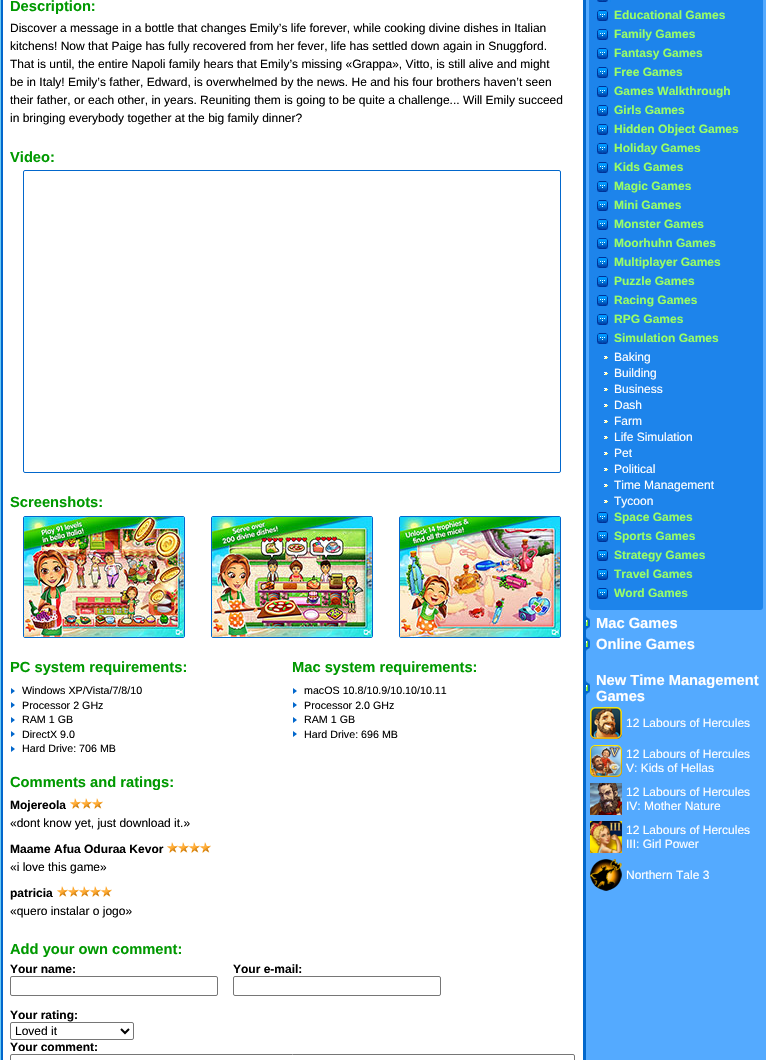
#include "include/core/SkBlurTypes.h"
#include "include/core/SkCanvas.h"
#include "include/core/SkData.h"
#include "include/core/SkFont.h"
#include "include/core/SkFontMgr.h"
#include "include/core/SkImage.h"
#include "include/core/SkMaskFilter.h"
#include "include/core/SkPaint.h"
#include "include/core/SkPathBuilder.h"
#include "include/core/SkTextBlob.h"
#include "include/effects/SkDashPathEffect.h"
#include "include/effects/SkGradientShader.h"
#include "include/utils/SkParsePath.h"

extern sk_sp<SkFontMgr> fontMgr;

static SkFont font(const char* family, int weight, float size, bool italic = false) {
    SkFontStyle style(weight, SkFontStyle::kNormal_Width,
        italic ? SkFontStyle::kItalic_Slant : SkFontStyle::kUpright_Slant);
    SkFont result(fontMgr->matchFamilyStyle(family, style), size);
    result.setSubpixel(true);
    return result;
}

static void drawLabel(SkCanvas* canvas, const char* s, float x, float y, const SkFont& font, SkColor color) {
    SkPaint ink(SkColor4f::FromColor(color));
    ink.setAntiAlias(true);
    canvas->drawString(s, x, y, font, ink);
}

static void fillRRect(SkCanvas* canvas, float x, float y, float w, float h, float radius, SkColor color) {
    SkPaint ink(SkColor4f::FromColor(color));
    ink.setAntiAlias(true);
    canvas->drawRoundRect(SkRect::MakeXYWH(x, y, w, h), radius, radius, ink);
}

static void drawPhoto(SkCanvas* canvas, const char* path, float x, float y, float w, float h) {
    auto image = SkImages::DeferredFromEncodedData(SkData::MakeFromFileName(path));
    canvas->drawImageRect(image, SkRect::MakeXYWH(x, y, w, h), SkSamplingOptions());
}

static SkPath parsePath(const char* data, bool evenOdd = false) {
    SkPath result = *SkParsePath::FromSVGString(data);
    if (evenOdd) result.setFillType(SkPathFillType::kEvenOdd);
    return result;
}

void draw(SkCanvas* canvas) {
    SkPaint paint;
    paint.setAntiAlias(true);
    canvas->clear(0xFFFFFFFF);
    drawPhoto(canvas, "assets/img1.png", 0, 0, 766, 1060);
    SkFont font1 = font("Liberation Sans", 700, 14.7f);
    drawLabel(canvas, "Description:", 10, 11, font1, 0xFF009900);
    SkFont font2 = font("Liberation Sans", 400, 12);
    drawLabel(canvas, "Discover a message in a bottle that changes Emily’s life forever, while cooking divine dishes in Italian", 10, 32, font2, 0xFF000000);
    drawLabel(canvas, "kitchens! Now that Paige has fully recovered from her fever, life has settled down again in Snuggford.", 10, 50, font2, 0xFF000000);
    drawLabel(canvas, "That is until, the entire Napoli family hears that Emily’s missing «Grappa», Vitto, is still alive and might", 10, 68, font2, 0xFF000000);
    drawLabel(canvas, "be in Italy! Emily’s father, Edward, is overwhelmed by the news. He and his four brothers haven’t seen", 10, 86, font2, 0xFF000000);
    drawLabel(canvas, "their father, or each other, in years. Reuniting them is going to be quite a challenge... Will Emily succeed", 10, 104, font2, 0xFF000000);
    drawLabel(canvas, "in bringing everybody together at the big family dinner?", 10, 122, font2, 0xFF000000);
    drawLabel(canvas, "Video:", 10, 162, font1, 0xFF009900);
    paint.setStroke(true);
    paint.setStrokeWidth(1);
    paint.setColor(0xFF0267CC);
    canvas->drawRoundRect(SkRect::MakeXYWH(23.5f, 170.5f, 537, 302), 1.5f, 1.5f, paint);
    drawLabel(canvas, "Screenshots:", 10, 507, font1, 0xFF009900);
    canvas->drawRoundRect(SkRect::MakeXYWH(23.5f, 516.5f, 161, 121), 1.5f, 1.5f, paint);
    drawPhoto(canvas, "assets/img2.png", 24, 517, 160, 120);
    canvas->drawRoundRect(SkRect::MakeXYWH(211.5f, 516.5f, 161, 121), 1.5f, 1.5f, paint);
    drawPhoto(canvas, "assets/img3.png", 212, 517, 160, 120);
    canvas->drawRoundRect(SkRect::MakeXYWH(399.5f, 516.5f, 161, 121), 1.5f, 1.5f, paint);
    drawPhoto(canvas, "assets/img4.png", 400, 517, 160, 120);
    drawLabel(canvas, "PC system requirements:", 10, 672, font1, 0xFF009900);
    paint.setStroke(false);
    canvas->drawPath(parsePath("M11 694V688L15 691ZM11 708V702L15 705ZM11 723V717L15 720ZM11 737V731L15 734Z"), paint);
    SkFont font3 = font("Liberation Sans", 400, 10.7f);
    drawLabel(canvas, "Windows XP/Vista/7/8/10", 22, 694, font3, 0xFF000000);
    drawLabel(canvas, "Processor 2 GHz", 22, 709, font3, 0xFF000000);
    drawLabel(canvas, "RAM 1 GB", 22, 723, font3, 0xFF000000);
    drawLabel(canvas, "DirectX 9.0", 22, 738, font3, 0xFF000000);
    canvas->drawPath(parsePath("M11 752V746L15 749Z"), paint);
    drawLabel(canvas, "Hard Drive: 706 MB", 22, 752, font3, 0xFF000000);
    drawLabel(canvas, "Mac system requirements:", 292, 672, font1, 0xFF009900);
    canvas->drawPath(parsePath("M293 694V688L297 691ZM293 708V702L297 705ZM293 723V717L297 720ZM293 737V731L297 734Z"), paint);
    drawLabel(canvas, "macOS 10.8/10.9/10.10/10.11", 304, 694, font3, 0xFF000000);
    drawLabel(canvas, "Processor 2.0 GHz", 304, 709, font3, 0xFF000000);
    drawLabel(canvas, "RAM 1 GB", 304, 723, font3, 0xFF000000);
    drawLabel(canvas, "Hard Drive: 696 MB", 304, 738, font3, 0xFF000000);
    drawLabel(canvas, "Comments and ratings:", 10, 787, font1, 0xFF009900);
    SkFont font4 = font("Liberation Sans", 700, 12);
    drawLabel(canvas, "Mojereola", 10, 809, font4, 0xFF000000);
    drawPhoto(canvas, "assets/img5.png", 70, 798, 33, 11);
    drawLabel(canvas, "«dont know yet, just download it.»", 10, 827, font2, 0xFF000000);
    drawLabel(canvas, "Maame Afua Oduraa Kevor", 10, 853, font4, 0xFF000000);
    drawPhoto(canvas, "assets/img6.png", 167, 842, 44, 11);
    drawLabel(canvas, "«i love this game»", 10, 871, font2, 0xFF000000);
    drawLabel(canvas, "patricia", 10, 897, font4, 0xFF000000);
    drawPhoto(canvas, "assets/img7.png", 57, 886, 55, 11);
    drawLabel(canvas, "«quero instalar o jogo»", 10, 915, font2, 0xFF000000);
    drawLabel(canvas, "Add your own comment:", 10, 954, font1, 0xFF009900);
    drawLabel(canvas, "Your name:", 10, 973, font4, 0xFF000000);
    paint.setStroke(true);
    paint.setColor(0xFF767676);
    canvas->drawRoundRect(SkRect::MakeXYWH(10.5f, 976.5f, 207, 19), 1.5f, 1.5f, paint);
    drawLabel(canvas, "Your e-mail:", 233, 973, font4, 0xFF000000);
    canvas->drawRoundRect(SkRect::MakeXYWH(233.5f, 976.5f, 207, 19), 1.5f, 1.5f, paint);
    drawLabel(canvas, "Your rating:", 10, 1019, font4, 0xFF000000);
    canvas->drawRoundRect(SkRect::MakeXYWH(10.5f, 1022.5f, 123, 17), 1.5f, 1.5f, paint);
    paint.setStrokeWidth(2);
    paint.setColor(0xFF000000);
    canvas->drawPath(parsePath("M121 1029L125 1033L129 1029"), paint);
    drawLabel(canvas, "Loved it", 15, 1035, font2, 0xFF000000);
    drawLabel(canvas, "Your comment:", 10, 1051, font4, 0xFF000000);
    paint.setStrokeWidth(1);
    paint.setColor(0xFF767676);
    canvas->drawRoundRect(SkRect::MakeXYWH(10.5f, 1054.5f, 564, 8), 1.5f, 1.5f, paint);
    fillRRect(canvas, 589, -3, 174, 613, 3, 0xFF1D84EB);
    drawPhoto(canvas, "assets/img8.png", 597, 0, 14, 2);
    drawPhoto(canvas, "assets/img9.png", 594, 10, 19, 11);
    drawLabel(canvas, "Educational Games", 614, 19, font4, 0xFF99FF66);
    drawPhoto(canvas, "assets/img9.png", 594, 29, 19, 11);
    drawLabel(canvas, "Family Games", 614, 38, font4, 0xFF99FF66);
    drawPhoto(canvas, "assets/img9.png", 594, 48, 19, 11);
    drawLabel(canvas, "Fantasy Games", 614, 57, font4, 0xFF99FF66);
    drawPhoto(canvas, "assets/img9.png", 594, 67, 19, 11);
    drawLabel(canvas, "Free Games", 614, 76, font4, 0xFF99FF66);
    drawPhoto(canvas, "assets/img9.png", 594, 86, 19, 11);
    drawLabel(canvas, "Games Walkthrough", 614, 95, font4, 0xFF99FF66);
    drawPhoto(canvas, "assets/img9.png", 594, 105, 19, 11);
    drawLabel(canvas, "Girls Games", 614, 114, font4, 0xFF99FF66);
    drawPhoto(canvas, "assets/img9.png", 594, 124, 19, 11);
    drawLabel(canvas, "Hidden Object Games", 614, 133, font4, 0xFF99FF66);
    drawPhoto(canvas, "assets/img9.png", 594, 143, 19, 11);
    drawLabel(canvas, "Holiday Games", 614, 152, font4, 0xFF99FF66);
    drawPhoto(canvas, "assets/img9.png", 594, 162, 19, 11);
    drawLabel(canvas, "Kids Games", 614, 171, font4, 0xFF99FF66);
    drawPhoto(canvas, "assets/img9.png", 594, 181, 19, 11);
    drawLabel(canvas, "Magic Games", 614, 190, font4, 0xFF99FF66);
    drawPhoto(canvas, "assets/img9.png", 594, 200, 19, 11);
    drawLabel(canvas, "Mini Games", 614, 209, font4, 0xFF99FF66);
    drawPhoto(canvas, "assets/img9.png", 594, 219, 19, 11);
    drawLabel(canvas, "Monster Games", 614, 228, font4, 0xFF99FF66);
    drawPhoto(canvas, "assets/img9.png", 594, 238, 19, 11);
    drawLabel(canvas, "Moorhuhn Games", 614, 247, font4, 0xFF99FF66);
    drawPhoto(canvas, "assets/img9.png", 594, 257, 19, 11);
    drawLabel(canvas, "Multiplayer Games", 614, 266, font4, 0xFF99FF66);
    drawPhoto(canvas, "assets/img9.png", 594, 276, 19, 11);
    drawLabel(canvas, "Puzzle Games", 614, 285, font4, 0xFF99FF66);
    drawPhoto(canvas, "assets/img9.png", 594, 295, 19, 11);
    drawLabel(canvas, "Racing Games", 614, 304, font4, 0xFF99FF66);
    drawPhoto(canvas, "assets/img9.png", 594, 314, 19, 11);
    drawLabel(canvas, "RPG Games", 614, 323, font4, 0xFF99FF66);
    drawPhoto(canvas, "assets/img9.png", 594, 333, 19, 11);
    drawLabel(canvas, "Simulation Games", 614, 342, font4, 0xFF99FF66);
    drawPhoto(canvas, "assets/img10.png", 604, 356, 4, 3);
    drawLabel(canvas, "Baking", 614, 361, font2, 0xFFFFFFFF);
    drawPhoto(canvas, "assets/img10.png", 604, 372, 4, 3);
    drawLabel(canvas, "Building", 614, 377, font2, 0xFFFFFFFF);
    drawPhoto(canvas, "assets/img10.png", 604, 388, 4, 3);
    drawLabel(canvas, "Business", 614, 393, font2, 0xFFFFFFFF);
    drawPhoto(canvas, "assets/img10.png", 604, 404, 4, 3);
    drawLabel(canvas, "Dash", 614, 409, font2, 0xFFFFFFFF);
    drawPhoto(canvas, "assets/img10.png", 604, 420, 4, 3);
    drawLabel(canvas, "Farm", 614, 425, font2, 0xFFFFFFFF);
    drawPhoto(canvas, "assets/img10.png", 604, 436, 4, 3);
    drawLabel(canvas, "Life Simulation", 614, 441, font2, 0xFFFFFFFF);
    drawPhoto(canvas, "assets/img10.png", 604, 452, 4, 3);
    drawLabel(canvas, "Pet", 614, 457, font2, 0xFFFFFFFF);
    drawPhoto(canvas, "assets/img10.png", 604, 468, 4, 3);
    drawLabel(canvas, "Political", 614, 473, font2, 0xFFFFFFFF);
    drawPhoto(canvas, "assets/img10.png", 604, 484, 4, 3);
    drawLabel(canvas, "Time Management", 614, 489, font2, 0xFFFFFFFF);
    drawPhoto(canvas, "assets/img10.png", 604, 500, 4, 3);
    drawLabel(canvas, "Tycoon", 614, 505, font2, 0xFFFFFFFF);
    drawPhoto(canvas, "assets/img9.png", 594, 512, 19, 11);
    drawLabel(canvas, "Space Games", 614, 521, font4, 0xFF99FF66);
    drawPhoto(canvas, "assets/img9.png", 594, 531, 19, 11);
    drawLabel(canvas, "Sports Games", 614, 540, font4, 0xFF99FF66);
    drawPhoto(canvas, "assets/img9.png", 594, 550, 19, 11);
    drawLabel(canvas, "Strategy Games", 614, 559, font4, 0xFF99FF66);
    drawPhoto(canvas, "assets/img9.png", 594, 569, 19, 11);
    drawLabel(canvas, "Travel Games", 614, 578, font4, 0xFF99FF66);
    drawPhoto(canvas, "assets/img9.png", 594, 588, 19, 11);
    drawLabel(canvas, "Word Games", 614, 597, font4, 0xFF99FF66);
    drawPhoto(canvas, "assets/img11.png", 586, 616, 4, 14);
    drawLabel(canvas, "Mac Games", 596, 628, font1, 0xFFFFFFFF);
    drawPhoto(canvas, "assets/img11.png", 586, 637, 4, 14);
    drawLabel(canvas, "Online Games", 596, 649, font1, 0xFFFFFFFF);
    drawPhoto(canvas, "assets/img11.png", 586, 681, 4, 14);
    drawLabel(canvas, "New Time Management", 596, 685, font1, 0xFFFFFFFF);
    drawLabel(canvas, "Games", 596, 701, font1, 0xFFFFFFFF);
    drawPhoto(canvas, "assets/img12.png", 590, 707, 32, 32);
    drawLabel(canvas, "12 Labours of Hercules", 626, 727, font2, 0xFFFFFFFF);
    drawPhoto(canvas, "assets/img13.png", 590, 745, 32, 32);
    drawLabel(canvas, "12 Labours of Hercules", 626, 758, font2, 0xFFFFFFFF);
    drawLabel(canvas, "V: Kids of Hellas", 626, 772, font2, 0xFFFFFFFF);
    drawPhoto(canvas, "assets/img14.png", 590, 783, 32, 32);
    drawLabel(canvas, "12 Labours of Hercules", 626, 796, font2, 0xFFFFFFFF);
    drawLabel(canvas, "IV: Mother Nature", 626, 810, font2, 0xFFFFFFFF);
    drawPhoto(canvas, "assets/img15.png", 590, 821, 32, 32);
    drawLabel(canvas, "12 Labours of Hercules", 626, 834, font2, 0xFFFFFFFF);
    drawLabel(canvas, "III: Girl Power", 626, 848, font2, 0xFFFFFFFF);
    drawPhoto(canvas, "assets/img16.png", 590, 859, 32, 32);
    drawLabel(canvas, "Northern Tale 3", 626, 879, font2, 0xFFFFFFFF);
}
